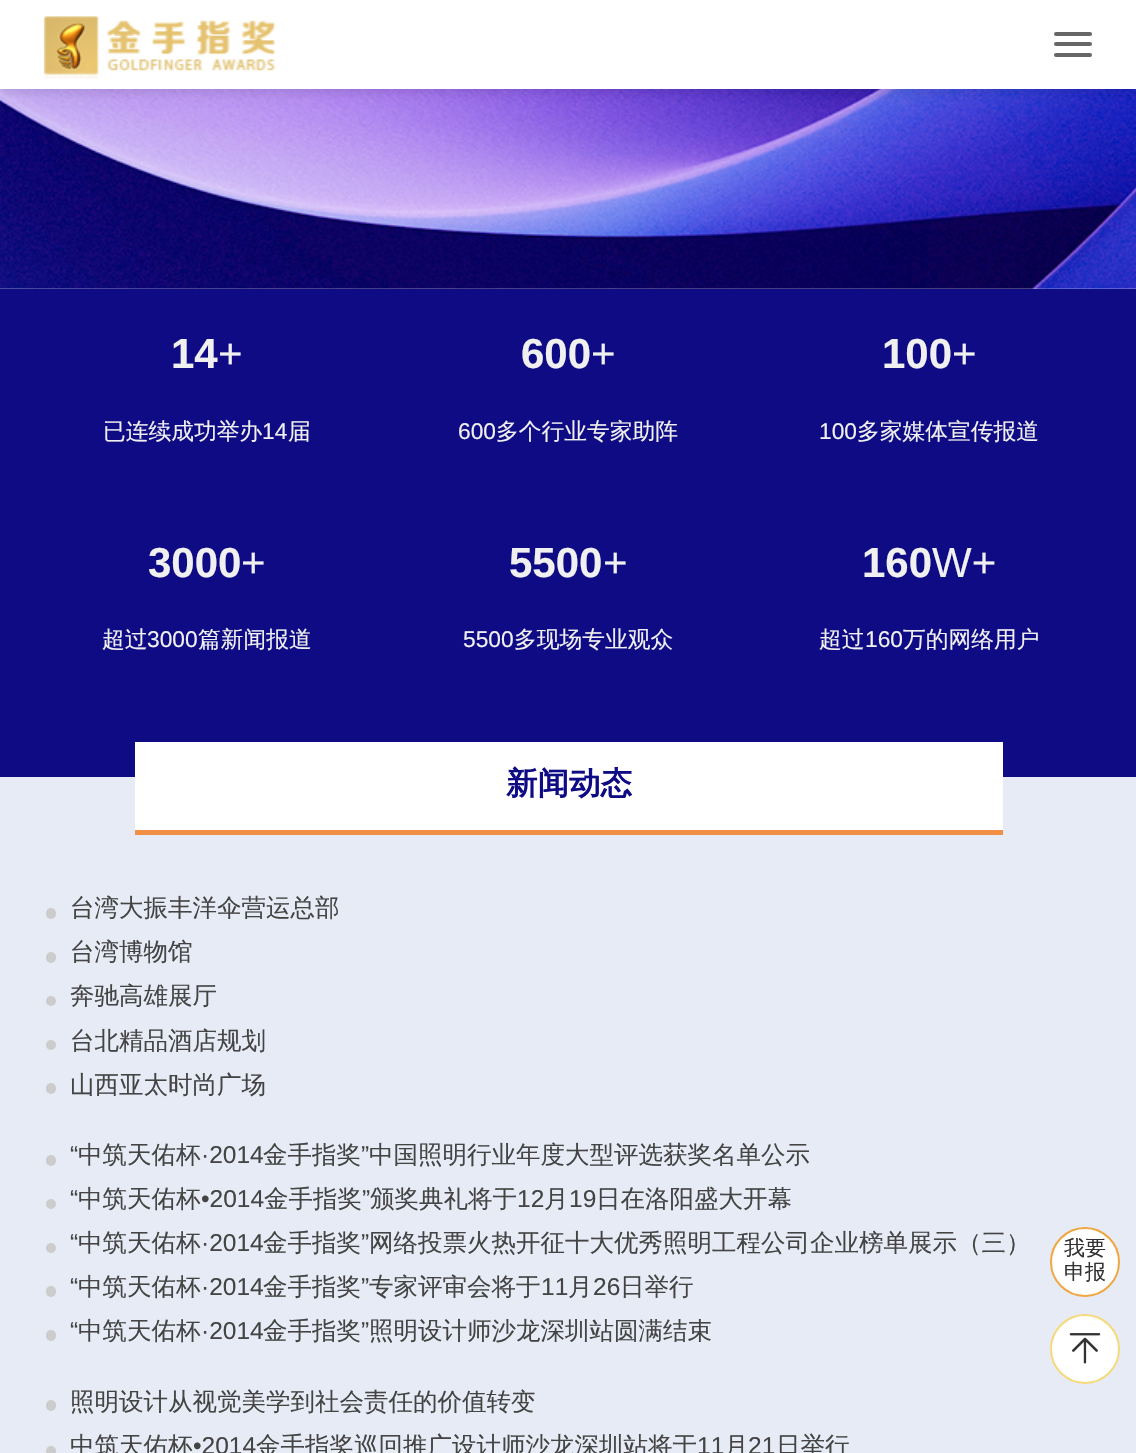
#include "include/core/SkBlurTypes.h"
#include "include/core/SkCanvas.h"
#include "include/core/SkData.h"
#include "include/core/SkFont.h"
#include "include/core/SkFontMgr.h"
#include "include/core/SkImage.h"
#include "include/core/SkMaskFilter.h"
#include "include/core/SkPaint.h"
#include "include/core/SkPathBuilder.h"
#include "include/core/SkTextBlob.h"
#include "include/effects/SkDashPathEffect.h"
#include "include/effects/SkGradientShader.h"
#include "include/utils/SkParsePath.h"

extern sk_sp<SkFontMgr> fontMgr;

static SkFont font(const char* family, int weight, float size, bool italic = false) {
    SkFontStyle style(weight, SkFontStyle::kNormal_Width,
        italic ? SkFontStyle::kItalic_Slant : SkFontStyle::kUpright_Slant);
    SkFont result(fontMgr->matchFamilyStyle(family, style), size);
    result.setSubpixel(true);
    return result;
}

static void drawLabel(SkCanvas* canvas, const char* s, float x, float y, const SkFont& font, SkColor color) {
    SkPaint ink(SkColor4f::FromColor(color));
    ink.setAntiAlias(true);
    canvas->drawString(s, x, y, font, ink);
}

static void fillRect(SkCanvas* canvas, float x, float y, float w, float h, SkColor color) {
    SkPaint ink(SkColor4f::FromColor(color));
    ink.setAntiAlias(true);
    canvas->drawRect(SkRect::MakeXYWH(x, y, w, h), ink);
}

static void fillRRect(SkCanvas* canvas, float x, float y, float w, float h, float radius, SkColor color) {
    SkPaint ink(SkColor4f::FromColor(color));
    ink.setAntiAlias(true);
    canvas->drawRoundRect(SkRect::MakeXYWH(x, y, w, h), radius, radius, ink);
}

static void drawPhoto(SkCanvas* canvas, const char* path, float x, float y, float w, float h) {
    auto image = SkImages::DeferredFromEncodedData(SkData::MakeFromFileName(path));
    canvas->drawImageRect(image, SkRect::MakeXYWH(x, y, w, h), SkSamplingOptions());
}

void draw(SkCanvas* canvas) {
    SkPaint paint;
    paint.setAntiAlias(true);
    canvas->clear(0xFFFFFFFF);
    drawPhoto(canvas, "assets/img2.png", 0, 89, 1136, 200);
    paint.setColor(0x1A000000);
    paint.setMaskFilter(SkMaskFilter::MakeBlur(kNormal_SkBlurStyle, 5));
    canvas->drawRect(SkRect::MakeXYWH(0, 4, 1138, 89), paint);
    paint.setMaskFilter(nullptr);
    fillRect(canvas, 0, 0, 1136, 89, 0xFFFFFFFF);
    drawPhoto(canvas, "assets/img1.png", 43, 16, 232, 63);
    fillRRect(canvas, 1054, 32, 38, 4, 2, 0xFF666666);
    fillRRect(canvas, 1054, 42, 38, 4, 2, 0xFF666666);
    fillRRect(canvas, 1054, 53, 38, 4, 2, 0xFF666666);
    fillRect(canvas, 0, 777, 1136, 676, 0xFFE7EBF5);
    fillRect(canvas, 0, 289, 1136, 488, 0xFF0F0B84);
    SkFont font1 = font("Liberation Sans", 700, 42);
    drawLabel(canvas, "14", 171, 368, font1, 0xFFF0F0F0);
    SkFont font2 = font("Liberation Sans", 400, 42);
    drawLabel(canvas, "+", 218, 368, font2, 0xFFF0F0F0);
    SkFont font3 = font("WenQuanYi Zen Hei", 500, 22.75f);
    drawLabel(canvas, "已连续成功举办", 103, 439, font3, 0xFFF0F0F0);
    SkFont font4 = font("Liberation Sans", 400, 22.75f);
    drawLabel(canvas, "14", 262, 439, font4, 0xFFF0F0F0);
    drawLabel(canvas, "届", 288, 439, font3, 0xFFF0F0F0);
    drawLabel(canvas, "600", 521, 368, font1, 0xFFF0F0F0);
    drawLabel(canvas, "+", 591, 368, font2, 0xFFF0F0F0);
    drawLabel(canvas, "600", 458, 439, font4, 0xFFF0F0F0);
    drawLabel(canvas, "多个行业专家助阵", 496, 439, font3, 0xFFF0F0F0);
    drawLabel(canvas, "100", 882, 368, font1, 0xFFF0F0F0);
    drawLabel(canvas, "+", 952, 368, font2, 0xFFF0F0F0);
    drawLabel(canvas, "100", 819, 439, font4, 0xFFF0F0F0);
    drawLabel(canvas, "多家媒体宣传报道", 857, 439, font3, 0xFFF0F0F0);
    drawLabel(canvas, "3000", 148, 577, font1, 0xFFF0F0F0);
    drawLabel(canvas, "+", 241, 577, font2, 0xFFF0F0F0);
    drawLabel(canvas, "超过", 102, 647, font3, 0xFFF0F0F0);
    drawLabel(canvas, "3000", 147, 647, font4, 0xFFF0F0F0);
    drawLabel(canvas, "篇新闻报道", 198, 647, font3, 0xFFF0F0F0);
    drawLabel(canvas, "5500", 509, 577, font1, 0xFFF0F0F0);
    drawLabel(canvas, "+", 603, 577, font2, 0xFFF0F0F0);
    drawLabel(canvas, "5500", 463, 647, font4, 0xFFF0F0F0);
    drawLabel(canvas, "多现场专业观众", 514, 647, font3, 0xFFF0F0F0);
    drawLabel(canvas, "160", 862, 577, font1, 0xFFF0F0F0);
    drawLabel(canvas, "W+", 932, 577, font2, 0xFFF0F0F0);
    drawLabel(canvas, "超过", 819, 647, font3, 0xFFF0F0F0);
    drawLabel(canvas, "160", 865, 647, font4, 0xFFF0F0F0);
    drawLabel(canvas, "万的网络用户", 903, 647, font3, 0xFFF0F0F0);
    fillRect(canvas, 135, 742, 868, 88, 0xFFFFFFFF);
    fillRect(canvas, 135, 830, 868, 5, 0xFFF08F45);
    SkFont font5 = font("WenQuanYi Zen Hei", 700, 31.5f);
    drawLabel(canvas, "新闻动态", 506, 794, font5, 0xFF0F0B84);
    fillRRect(canvas, 46, 908, 10, 11, 5, 0xFFCCCCCC);
    SkFont font6 = font("WenQuanYi Zen Hei", 500, 24.5f);
    drawLabel(canvas, "台湾大振丰洋伞营运总部", 70, 916, font6, 0xFF444444);
    fillRRect(canvas, 46, 952, 10, 11, 5, 0xFFCCCCCC);
    drawLabel(canvas, "台湾博物馆", 70, 960, font6, 0xFF444444);
    paint.setColor(0xFFCCCCCC);
    canvas->drawCircle(51, 1001, 5, paint);
    drawLabel(canvas, "奔驰高雄展厅", 70, 1004, font6, 0xFF444444);
    canvas->drawCircle(51, 1045, 5, paint);
    drawLabel(canvas, "台北精品酒店规划", 70, 1049, font6, 0xFF444444);
    fillRRect(canvas, 46, 1083, 10, 11, 5, 0xFFCCCCCC);
    drawLabel(canvas, "山西亚太时尚广场", 70, 1093, font6, 0xFF444444);
    fillRRect(canvas, 46, 1155, 10, 11, 5, 0xFFCCCCCC);
    SkFont font7 = font("Liberation Sans", 400, 24.5f);
    drawLabel(canvas, "“", 70, 1163, font7, 0xFF444444);
    drawLabel(canvas, "中筑天佑杯", 78, 1163, font6, 0xFF444444);
    drawLabel(canvas, "·2014", 201, 1163, font7, 0xFF444444);
    drawLabel(canvas, "金手指奖", 263, 1163, font6, 0xFF444444);
    drawLabel(canvas, "”", 361, 1163, font7, 0xFF444444);
    drawLabel(canvas, "中国照明行业年度大型评选获奖名单公示", 369, 1163, font6, 0xFF444444);
    canvas->drawCircle(51, 1204, 5, paint);
    drawLabel(canvas, "“", 70, 1207, font7, 0xFF444444);
    drawLabel(canvas, "中筑天佑杯", 78, 1207, font6, 0xFF444444);
    drawLabel(canvas, "•2014", 201, 1207, font7, 0xFF444444);
    drawLabel(canvas, "金手指奖", 264, 1207, font6, 0xFF444444);
    drawLabel(canvas, "”", 362, 1207, font7, 0xFF444444);
    drawLabel(canvas, "颁奖典礼将于", 370, 1207, font6, 0xFF444444);
    drawLabel(canvas, "12", 517, 1207, font7, 0xFF444444);
    drawLabel(canvas, "月", 544, 1207, font6, 0xFF444444);
    drawLabel(canvas, "19", 569, 1207, font7, 0xFF444444);
    drawLabel(canvas, "日在洛阳盛大开幕", 596, 1207, font6, 0xFF444444);
    canvas->drawCircle(51, 1248, 5, paint);
    drawLabel(canvas, "“", 70, 1251, font7, 0xFF444444);
    drawLabel(canvas, "中筑天佑杯", 78, 1251, font6, 0xFF444444);
    drawLabel(canvas, "·2014", 201, 1251, font7, 0xFF444444);
    drawLabel(canvas, "金手指奖", 263, 1251, font6, 0xFF444444);
    drawLabel(canvas, "”", 361, 1251, font7, 0xFF444444);
    drawLabel(canvas, "网络投票火热开征十大优秀照明工程公司企业榜单展示（三）", 369, 1251, font6, 0xFF444444);
    fillRRect(canvas, 46, 1286, 10, 11, 5, 0xFFCCCCCC);
    drawLabel(canvas, "“", 70, 1295, font7, 0xFF444444);
    drawLabel(canvas, "中筑天佑杯", 78, 1295, font6, 0xFF444444);
    drawLabel(canvas, "·2014", 201, 1295, font7, 0xFF444444);
    drawLabel(canvas, "金手指奖", 263, 1295, font6, 0xFF444444);
    drawLabel(canvas, "”", 361, 1295, font7, 0xFF444444);
    drawLabel(canvas, "专家评审会将于", 369, 1295, font6, 0xFF444444);
    drawLabel(canvas, "11", 541, 1295, font7, 0xFF444444);
    drawLabel(canvas, "月", 568, 1295, font6, 0xFF444444);
    drawLabel(canvas, "26", 593, 1295, font7, 0xFF444444);
    drawLabel(canvas, "日举行", 620, 1295, font6, 0xFF444444);
    fillRRect(canvas, 46, 1330, 10, 11, 5, 0xFFCCCCCC);
    drawLabel(canvas, "“", 70, 1339, font7, 0xFF444444);
    drawLabel(canvas, "中筑天佑杯", 78, 1339, font6, 0xFF444444);
    drawLabel(canvas, "·2014", 201, 1339, font7, 0xFF444444);
    drawLabel(canvas, "金手指奖", 263, 1339, font6, 0xFF444444);
    drawLabel(canvas, "”", 361, 1339, font7, 0xFF444444);
    drawLabel(canvas, "照明设计师沙龙深圳站圆满结束", 369, 1339, font6, 0xFF444444);
    fillRRect(canvas, 46, 1400, 10, 11, 5, 0xFFCCCCCC);
    drawLabel(canvas, "照明设计从视觉美学到社会责任的价值转变", 70, 1410, font6, 0xFF444444);
    canvas->drawCircle(51, 1451, 5, paint);
    drawLabel(canvas, "中筑天佑杯", 70, 1454, font6, 0xFF444444);
    drawLabel(canvas, "•2014", 193, 1454, font7, 0xFF444444);
    drawLabel(canvas, "金手指奖巡回推广设计师沙龙深圳站将于", 256, 1454, font6, 0xFF444444);
    drawLabel(canvas, "11", 697, 1454, font7, 0xFF444444);
    drawLabel(canvas, "月", 724, 1454, font6, 0xFF444444);
    drawLabel(canvas, "21", 748, 1454, font7, 0xFF444444);
    drawLabel(canvas, "日举行", 776, 1454, font6, 0xFF444444);
    paint.setColor(0xFFFFFFFF);
    canvas->drawCircle(1085, 1262, 34, paint);
    paint.setStroke(true);
    paint.setStrokeWidth(2);
    paint.setColor(0xFFF0A741);
    canvas->drawCircle(1085, 1262, 34, paint);
    SkFont font8 = font("WenQuanYi Zen Hei", 500, 21);
    drawLabel(canvas, "我要", 1064, 1255, font8, 0xFF333333);
    drawLabel(canvas, "申报", 1064, 1279, font8, 0xFF333333);
    paint.setStroke(false);
    paint.setColor(0xFFFFFFFF);
    canvas->drawCircle(1085, 1349, 34, paint);
    paint.setStroke(true);
    paint.setColor(0xFFF5DA7C);
    canvas->drawCircle(1085, 1349, 34, paint);
    drawPhoto(canvas, "assets/img3.png", 1069, 1333, 32, 31);
}
